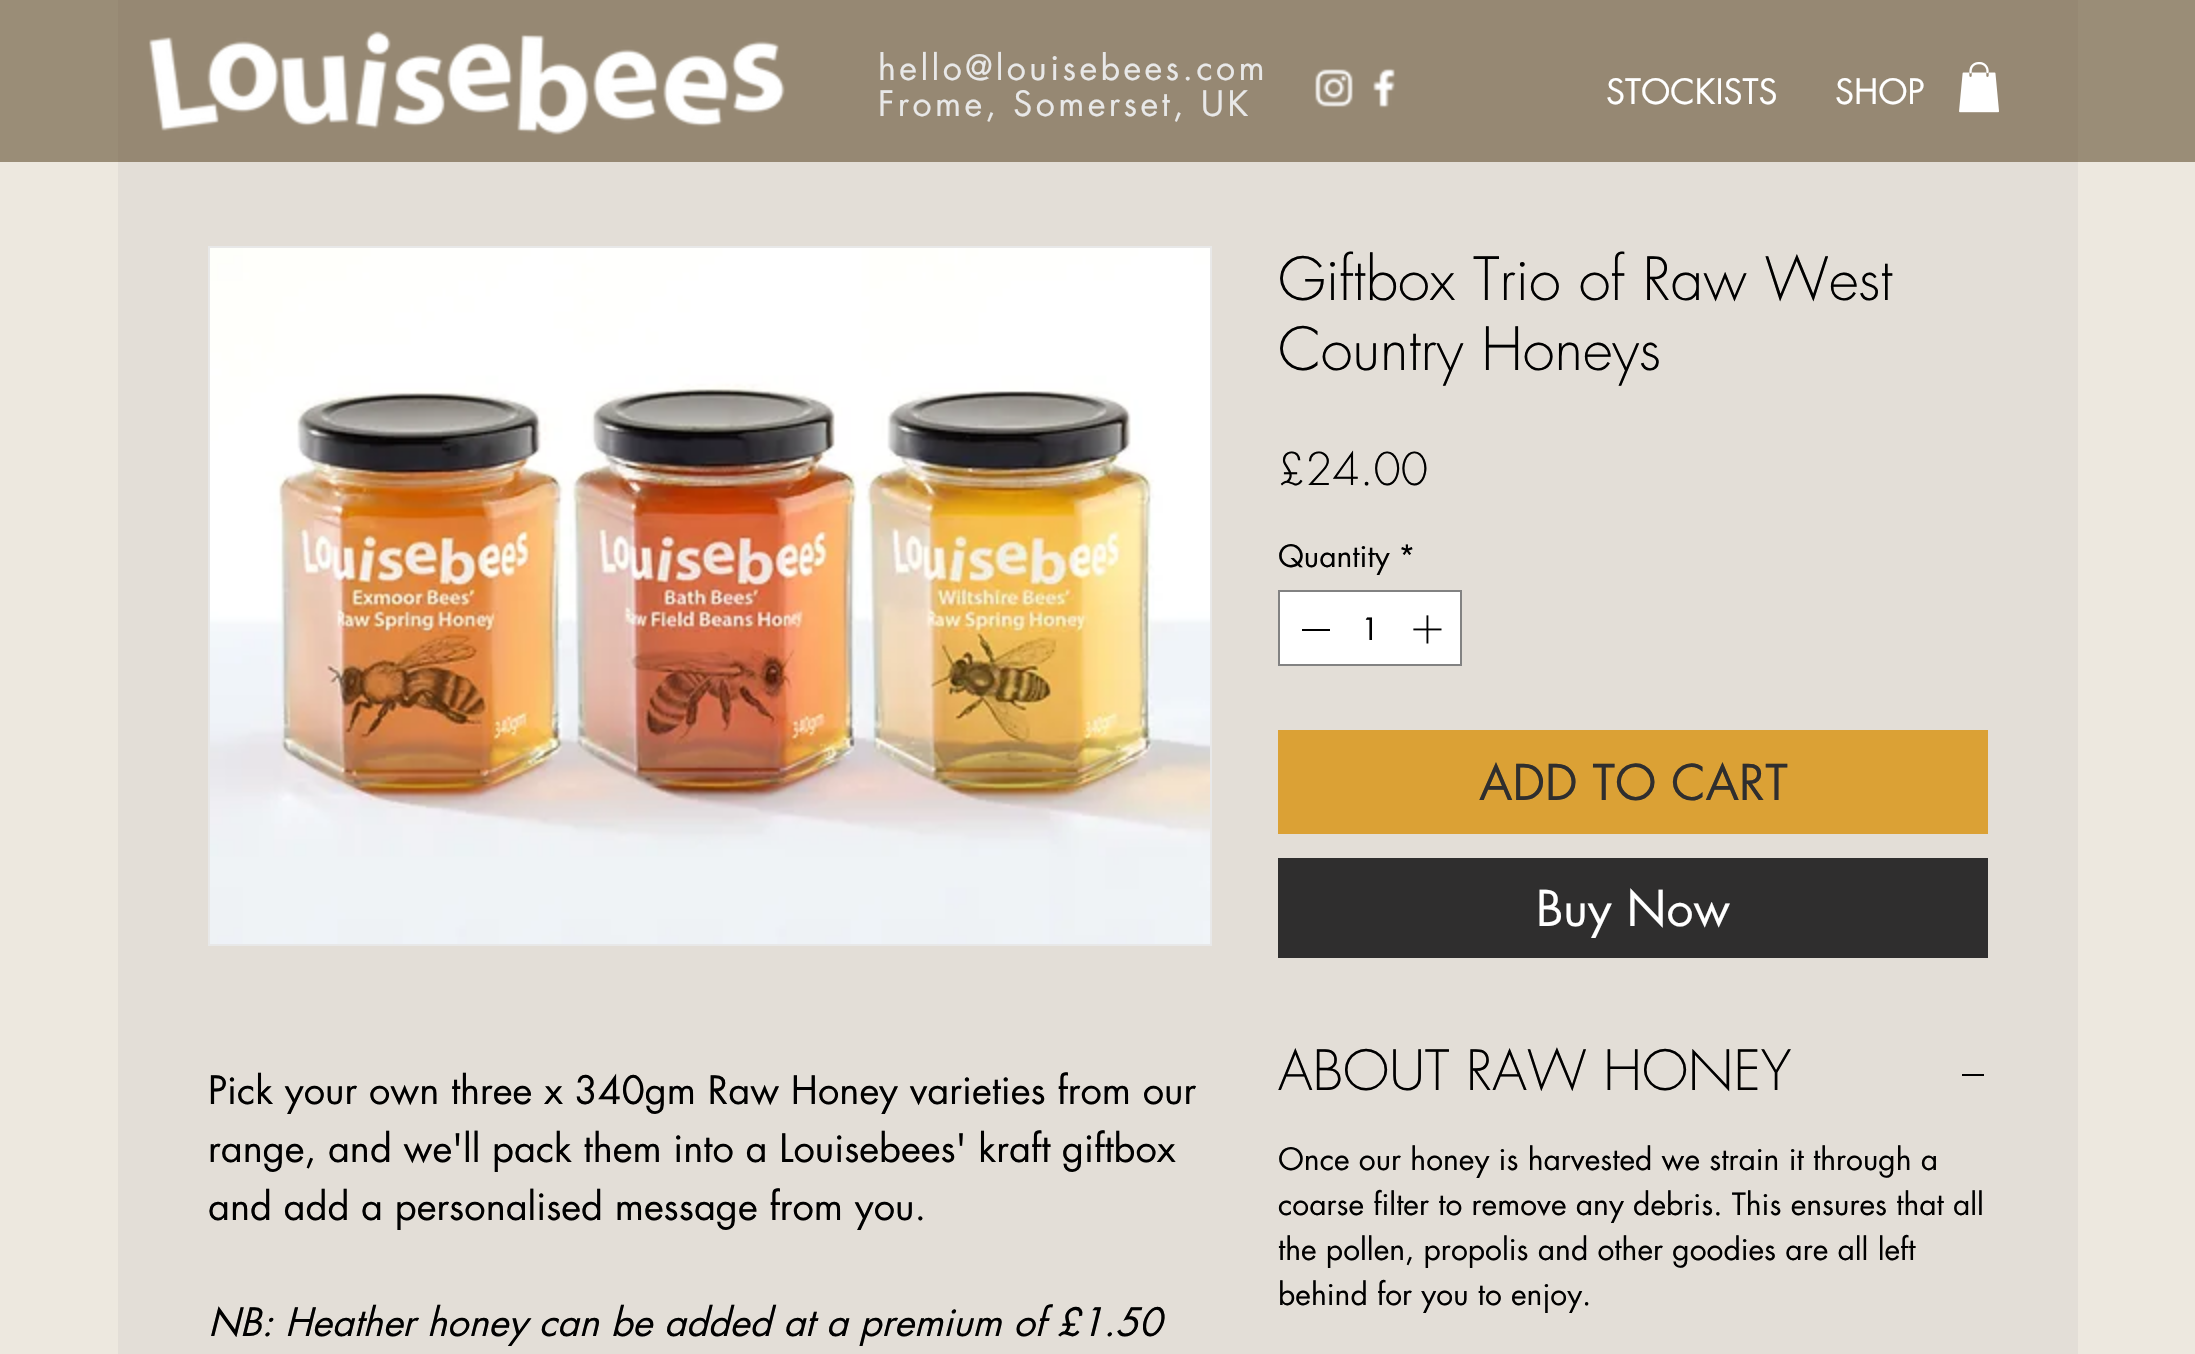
#include "include/core/SkBlurTypes.h"
#include "include/core/SkCanvas.h"
#include "include/core/SkData.h"
#include "include/core/SkFont.h"
#include "include/core/SkFontMgr.h"
#include "include/core/SkImage.h"
#include "include/core/SkMaskFilter.h"
#include "include/core/SkPaint.h"
#include "include/core/SkPathBuilder.h"
#include "include/core/SkTextBlob.h"
#include "include/effects/SkDashPathEffect.h"
#include "include/effects/SkGradientShader.h"
#include "include/utils/SkParsePath.h"

extern sk_sp<SkFontMgr> fontMgr;

static SkFont font(const char* family, int weight, float size, bool italic = false) {
    SkFontStyle style(weight, SkFontStyle::kNormal_Width,
        italic ? SkFontStyle::kItalic_Slant : SkFontStyle::kUpright_Slant);
    SkFont result(fontMgr->matchFamilyStyle(family, style), size);
    result.setSubpixel(true);
    return result;
}

static void drawLabel(SkCanvas* canvas, const char* s, float x, float y, const SkFont& font, SkColor color) {
    SkPaint ink(SkColor4f::FromColor(color));
    ink.setAntiAlias(true);
    canvas->drawString(s, x, y, font, ink);
}

static void drawTracked(SkCanvas* canvas, const char* s, float x, float y, const SkFont& font, const SkPaint& ink, float letter, float word) {
    std::vector<SkGlyphID> glyphs(font.countText(s, strlen(s), SkTextEncoding::kUTF8));
    std::vector<float> xs(glyphs.size());
    font.textToGlyphs(s, strlen(s), SkTextEncoding::kUTF8, glyphs);
    font.getXPos(glyphs, xs, x);
    float extra = 0;
    for (size_t i = 0; i < glyphs.size(); i++) {
        xs[i] += extra;
        extra += letter + word * (glyphs[i] == font.unicharToGlyph(' '));
    }
    canvas->drawTextBlob(SkTextBlob::MakeFromPosHGlyphs(glyphs, xs, y, font), 0, 0, ink);
}

static void fillRect(SkCanvas* canvas, float x, float y, float w, float h, SkColor color) {
    SkPaint ink(SkColor4f::FromColor(color));
    ink.setAntiAlias(true);
    canvas->drawRect(SkRect::MakeXYWH(x, y, w, h), ink);
}

static void drawPhoto(SkCanvas* canvas, const char* path, float x, float y, float w, float h) {
    auto image = SkImages::DeferredFromEncodedData(SkData::MakeFromFileName(path));
    canvas->drawImageRect(image, SkRect::MakeXYWH(x, y, w, h), SkSamplingOptions());
}

void draw(SkCanvas* canvas) {
    SkPaint paint;
    paint.setAntiAlias(true);
    canvas->clear(0xFFEDE8DF);
    fillRect(canvas, 0, 0, 2195, 162, 0xFF9A8D77);
    fillRect(canvas, 118, 0, 1960, 162, 0xFF968873);
    drawPhoto(canvas, "assets/img1.png", 149, 31, 636, 104);
    SkFont font1 = font("futura", 400, 34);
    paint.setColor(0xFFE8E8E8);
    drawTracked(canvas, "hello@louisebees.com", 878, 80, font1, paint, 3.4f, 0);
    drawTracked(canvas, "Frome, Somerset, UK", 878, 116, font1, paint, 3.4f, 0);
    drawPhoto(canvas, "assets/img2.png", 1315, 69, 38, 38);
    drawPhoto(canvas, "assets/img3.png", 1373, 68, 22, 40);
    drawLabel(canvas, "STOCKISTS", 1606, 104, font1, 0xFFFFFFFF);
    drawLabel(canvas, "SHOP", 1835, 104, font1, 0xFFFFFFFF);
    drawPhoto(canvas, "assets/img4.png", 1959, 62, 40, 51);
    fillRect(canvas, 118, 162, 1960, 1192, 0xFFE3DED7);
    paint.setStroke(true);
    paint.setStrokeWidth(2);
    canvas->drawRect(SkRect::MakeXYWH(209, 247, 1002, 698), paint);
    drawPhoto(canvas, "assets/img5.png", 210, 248, 1000, 696);
    SkFont font2 = font("futura", 400, 38);
    drawLabel(canvas, "Pick your own three x 340gm Raw Honey varieties from our", 208, 1104, font2, 0xFF000000);
    drawLabel(canvas, "range, and we'll pack them into a Louisebees' kraft giftbox", 208, 1162, font2, 0xFF000000);
    drawLabel(canvas, "and add a personalised message from you.", 208, 1220, font2, 0xFF000000);
    SkFont font3 = font("futura", 400, 38, true);
    drawLabel(canvas, "NB: Heather honey can be added at a premium of £1.50", 208, 1336, font3, 0xFF000000);
    SkFont font4 = font("futura", 300, 58);
    drawLabel(canvas, "Giftbox Trio of Raw West", 1278, 300, font4, 0xFF000000);
    drawLabel(canvas, "Country Honeys", 1278, 370, font4, 0xFF000000);
    SkFont font5 = font("futura", 300, 44);
    drawLabel(canvas, "£24.00", 1278, 485, font5, 0xFF000000);
    SkFont font6 = font("futura", 400, 30);
    drawLabel(canvas, "Quantity", 1278, 567, font6, 0xFF000000);
    drawLabel(canvas, "*", 1398, 567, font6, 0xFF000000);
    paint.setStroke(false);
    paint.setColor(0xFFFFFFFF);
    canvas->drawRect(SkRect::MakeXYWH(1279, 591, 182, 74), paint);
    paint.setStroke(true);
    paint.setColor(0xFF828282);
    canvas->drawRect(SkRect::MakeXYWH(1279, 591, 182, 74), paint);
    fillRect(canvas, 1302, 629, 28, 2, 0xFF000000);
    drawLabel(canvas, "1", 1361, 640, font6, 0xFF000000);
    drawPhoto(canvas, "assets/img6.png", 1413, 615, 29, 29);
    fillRect(canvas, 1278, 730, 710, 104, 0xFFDBA135);
    SkFont font7 = font("futura", 400, 48);
    drawLabel(canvas, "ADD TO CART", 1479, 800, font7, 0xFF2F2E2E);
    fillRect(canvas, 1278, 858, 710, 100, 0xFF2F2E2E);
    canvas->save();
    canvas->clipRect(SkRect::MakeXYWH(1536, 878, 194, 60));
    drawLabel(canvas, "Buy Now", 1536, 926, font7, 0xFFFFFFFF);
    canvas->restore();
    SkFont font8 = font("futura", 300, 54);
    drawLabel(canvas, "ABOUT RAW HONEY", 1278, 1090, font8, 0xFF000000);
    fillRect(canvas, 1962, 1074, 22, 2, 0xFF000000);
    drawLabel(canvas, "Once our honey is harvested we strain it through a", 1278, 1170, font6, 0xFF000000);
    drawLabel(canvas, "coarse filter to remove any debris. This ensures that all", 1278, 1215, font6, 0xFF000000);
    drawLabel(canvas, "the pollen, propolis and other goodies are all left", 1278, 1260, font6, 0xFF000000);
    drawLabel(canvas, "behind for you to enjoy.", 1278, 1305, font6, 0xFF000000);
}
